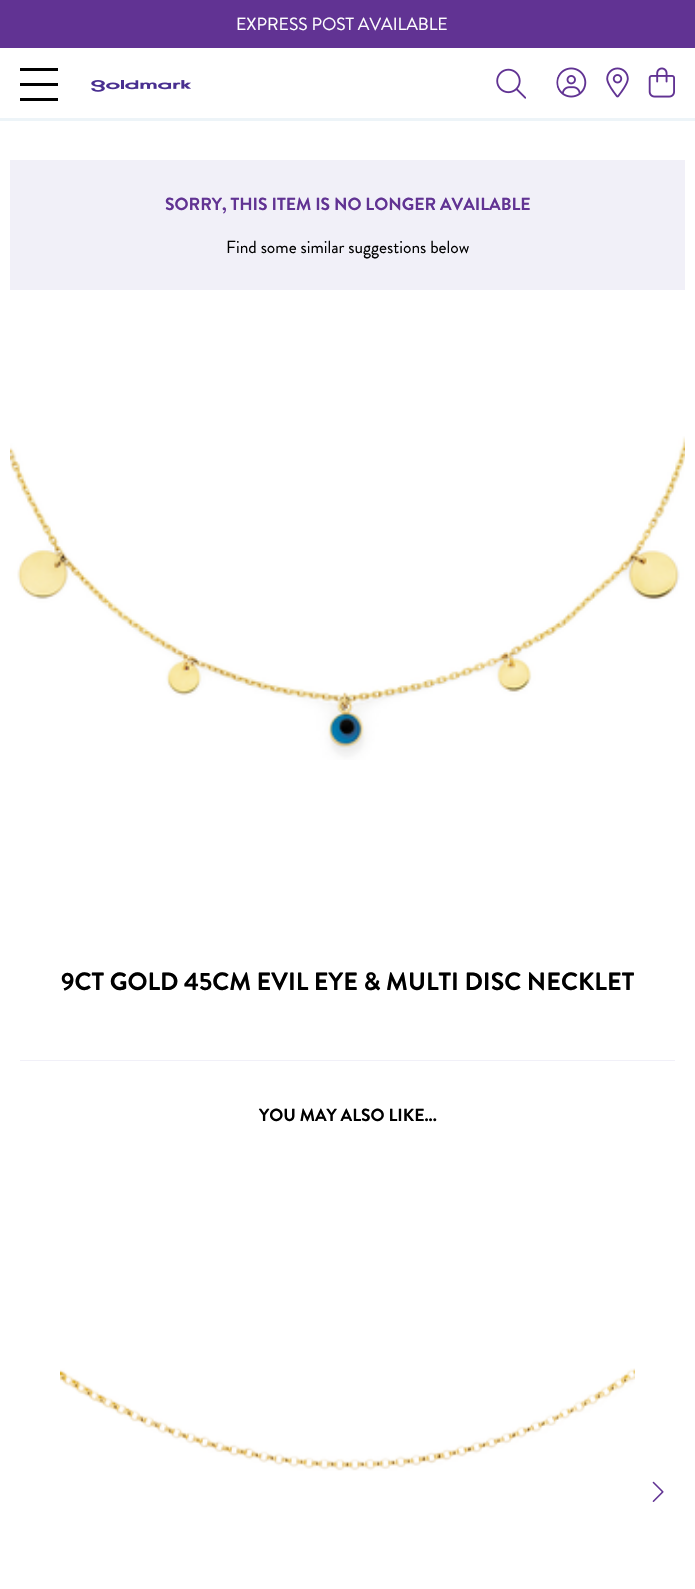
#include "include/core/SkBlurTypes.h"
#include "include/core/SkCanvas.h"
#include "include/core/SkData.h"
#include "include/core/SkFont.h"
#include "include/core/SkFontMgr.h"
#include "include/core/SkImage.h"
#include "include/core/SkMaskFilter.h"
#include "include/core/SkPaint.h"
#include "include/core/SkPathBuilder.h"
#include "include/core/SkTextBlob.h"
#include "include/effects/SkDashPathEffect.h"
#include "include/effects/SkGradientShader.h"
#include "include/utils/SkParsePath.h"

extern sk_sp<SkFontMgr> fontMgr;

static SkFont font(const char* family, int weight, float size, bool italic = false) {
    SkFontStyle style(weight, SkFontStyle::kNormal_Width,
        italic ? SkFontStyle::kItalic_Slant : SkFontStyle::kUpright_Slant);
    SkFont result(fontMgr->matchFamilyStyle(family, style), size);
    result.setSubpixel(true);
    return result;
}

static void drawLabel(SkCanvas* canvas, const char* s, float x, float y, const SkFont& font, SkColor color) {
    SkPaint ink(SkColor4f::FromColor(color));
    ink.setAntiAlias(true);
    canvas->drawString(s, x, y, font, ink);
}

static void fillRect(SkCanvas* canvas, float x, float y, float w, float h, SkColor color) {
    SkPaint ink(SkColor4f::FromColor(color));
    ink.setAntiAlias(true);
    canvas->drawRect(SkRect::MakeXYWH(x, y, w, h), ink);
}

static void drawPhoto(SkCanvas* canvas, const char* path, float x, float y, float w, float h) {
    auto image = SkImages::DeferredFromEncodedData(SkData::MakeFromFileName(path));
    canvas->drawImageRect(image, SkRect::MakeXYWH(x, y, w, h), SkSamplingOptions());
}

void draw(SkCanvas* canvas) {
    SkPaint paint;
    paint.setAntiAlias(true);
    canvas->clear(0xFFFFFFFF);
    fillRect(canvas, 0, 118, 695, 3, 0xFFEDF4F8);
    fillRect(canvas, 0, 0, 695, 48, 0xFF613393);
    SkFont font1 = font("Brandon Grotesque", 400, 17.5f);
    drawLabel(canvas, "EXPRESS POST AVAILABLE", 236, 30, font1, 0xFFFFFFFF);
    fillRect(canvas, 20, 68, 38, 3, 0xFF000000);
    fillRect(canvas, 20, 83, 38, 3, 0xFF000000);
    fillRect(canvas, 20, 98, 38, 3, 0xFF000000);
    drawPhoto(canvas, "assets/img1.png", 91, 80, 100, 12);
    drawPhoto(canvas, "assets/img2.png", 496, 68, 30, 31);
    drawPhoto(canvas, "assets/img3.png", 556, 67, 31, 31);
    drawPhoto(canvas, "assets/img4.png", 606, 67, 23, 31);
    drawPhoto(canvas, "assets/img5.png", 648, 67, 27, 31);
    fillRect(canvas, 10, 160, 675, 130, 0xFFF1F0F8);
    SkFont font2 = font("Brandon Grotesque", 700, 17.5f);
    drawLabel(canvas, "SORRY, THIS ITEM IS NO LONGER AVAILABLE", 165, 210, font2, 0xFF613393);
    drawLabel(canvas, "Find some similar suggestions below", 226, 253, font1, 0xFF000000);
    drawPhoto(canvas, "assets/img6.png", 10, 436, 675, 324);
    SkFont font3 = font("Brandon Grotesque", 700, 25);
    drawLabel(canvas, "9CT GOLD 45CM EVIL EYE & MULTI DISC NECKLET", 61, 990, font3, 0xFF000000);
    fillRect(canvas, 20, 1060, 655, 1, 0xFFF1F0F8);
    drawLabel(canvas, "YOU MAY ALSO LIKE...", 259, 1121, font2, 0xFF000000);
    drawPhoto(canvas, "assets/img7.png", 60, 1368, 575, 103);
    drawPhoto(canvas, "assets/img8.png", 652, 1481, 12, 21);
}
